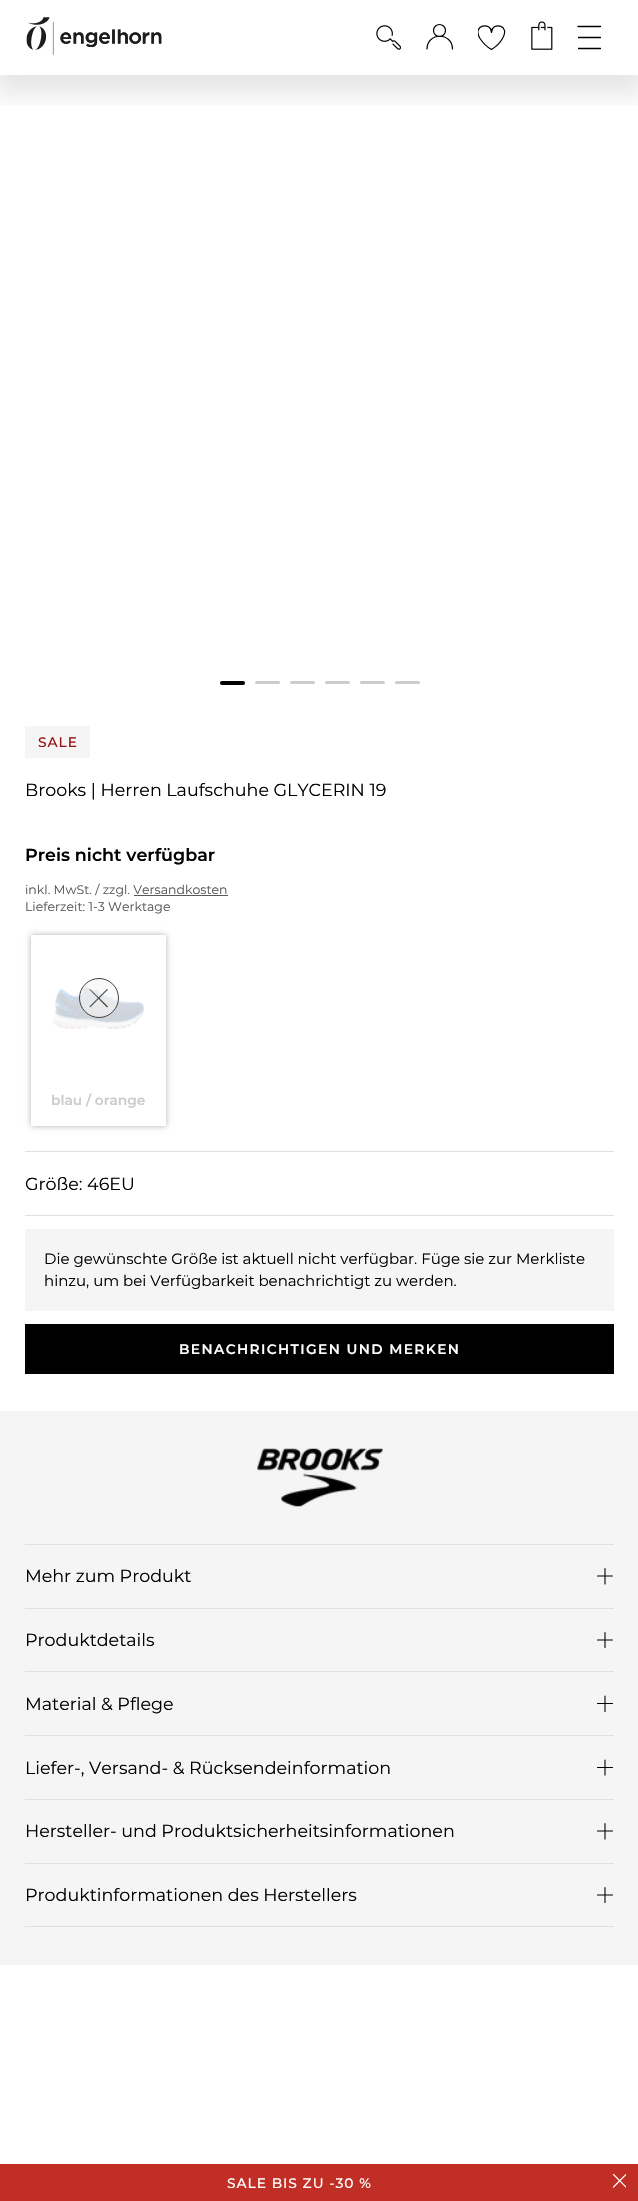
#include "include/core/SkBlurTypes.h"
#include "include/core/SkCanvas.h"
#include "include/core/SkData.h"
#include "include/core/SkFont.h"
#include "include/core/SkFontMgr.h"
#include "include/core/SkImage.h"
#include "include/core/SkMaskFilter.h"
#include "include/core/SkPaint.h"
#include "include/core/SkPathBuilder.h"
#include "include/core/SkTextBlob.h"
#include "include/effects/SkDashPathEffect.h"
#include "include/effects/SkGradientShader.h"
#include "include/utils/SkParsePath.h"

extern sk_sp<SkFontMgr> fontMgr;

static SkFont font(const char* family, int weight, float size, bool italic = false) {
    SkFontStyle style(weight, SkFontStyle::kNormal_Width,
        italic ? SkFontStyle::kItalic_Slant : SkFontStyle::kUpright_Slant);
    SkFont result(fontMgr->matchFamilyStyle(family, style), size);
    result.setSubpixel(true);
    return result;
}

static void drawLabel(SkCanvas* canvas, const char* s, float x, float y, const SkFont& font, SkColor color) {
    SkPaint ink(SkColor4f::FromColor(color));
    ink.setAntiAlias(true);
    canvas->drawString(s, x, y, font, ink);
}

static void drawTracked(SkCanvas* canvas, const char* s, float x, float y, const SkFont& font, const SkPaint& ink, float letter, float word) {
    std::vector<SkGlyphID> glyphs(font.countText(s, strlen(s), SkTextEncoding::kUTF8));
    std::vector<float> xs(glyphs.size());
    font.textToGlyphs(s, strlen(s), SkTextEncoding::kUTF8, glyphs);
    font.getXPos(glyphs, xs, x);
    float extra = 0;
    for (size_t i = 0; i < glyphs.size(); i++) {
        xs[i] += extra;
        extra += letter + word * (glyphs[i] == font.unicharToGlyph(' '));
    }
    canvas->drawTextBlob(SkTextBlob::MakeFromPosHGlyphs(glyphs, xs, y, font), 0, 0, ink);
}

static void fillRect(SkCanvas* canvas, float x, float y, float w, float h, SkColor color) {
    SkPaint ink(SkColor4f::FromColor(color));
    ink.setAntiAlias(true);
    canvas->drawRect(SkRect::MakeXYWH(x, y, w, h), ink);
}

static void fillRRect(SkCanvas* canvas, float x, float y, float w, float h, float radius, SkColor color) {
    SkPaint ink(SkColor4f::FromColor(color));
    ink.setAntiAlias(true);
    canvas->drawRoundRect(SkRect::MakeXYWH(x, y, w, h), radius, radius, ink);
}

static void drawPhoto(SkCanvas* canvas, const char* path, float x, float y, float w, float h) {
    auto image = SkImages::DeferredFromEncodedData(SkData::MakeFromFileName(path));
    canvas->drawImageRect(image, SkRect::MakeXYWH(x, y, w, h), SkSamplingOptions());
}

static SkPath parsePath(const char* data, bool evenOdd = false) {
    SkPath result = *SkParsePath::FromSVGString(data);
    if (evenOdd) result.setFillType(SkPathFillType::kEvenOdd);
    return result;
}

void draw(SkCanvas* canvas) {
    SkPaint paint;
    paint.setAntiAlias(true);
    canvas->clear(0xFFFFFFFF);
    fillRRect(canvas, 220, 681, 25, 4, 2, 0xFF000000);
    fillRRect(canvas, 255, 681, 25, 3, 1.5f, 0xFFCCCCCC);
    fillRRect(canvas, 290, 681, 25, 3, 1.5f, 0xFFCCCCCC);
    fillRRect(canvas, 325, 681, 25, 3, 1.5f, 0xFFCCCCCC);
    fillRRect(canvas, 360, 681, 25, 3, 1.5f, 0xFFCCCCCC);
    fillRRect(canvas, 395, 681, 25, 3, 1.5f, 0xFFCCCCCC);
    fillRect(canvas, 25, 726, 65, 32, 0xFFF5F5F5);
    SkFont font1 = font("Montserrat", 500, 13.75f);
    paint.setColor(0xFF961414);
    drawTracked(canvas, "SALE", 38, 747, font1, paint, 1, 0);
    SkFont font2 = font("Montserrat", 400, 17.5f);
    drawLabel(canvas, "Brooks | Herren Laufschuhe GLYCERIN 19", 25, 796, font2, 0xFF000000);
    SkFont font3 = font("Montserrat", 600, 17.5f);
    drawLabel(canvas, "Preis nicht verfügbar", 25, 861, font3, 0xFF000000);
    SkFont font4 = font("Montserrat", 400, 12.5f);
    drawLabel(canvas, "inkl. MwSt. / zzgl. Versandkosten", 25, 894, font4, 0xFF595959);
    fillRect(canvas, 134, 895, 94, 1, 0xFF595959);
    drawLabel(canvas, "Lieferzeit: 1-3 Werktage", 25, 911, font4, 0xFF595959);
    fillRect(canvas, 25, 1151, 589, 1, 0xFFE0E0E0);
    drawPhoto(canvas, "assets/img1.png", 53, 986, 91, 43);
    paint.setColor(0x99F5F5F5);
    canvas->drawCircle(99, 998, 19.5f, paint);
    paint.setStroke(true);
    paint.setStrokeWidth(1);
    paint.setColor(0xFF404040);
    canvas->drawCircle(99, 998, 19.5f, paint);
    paint.setStroke(false);
    canvas->drawPath(parsePath("M89.5 989.5L90 989L108 1006.5L107 1007.5Z"), paint);
    canvas->drawPath(parsePath("M107 989L108 989.5L90 1007.5L89.5 1006.5Z"), paint);
    canvas->save();
    canvas->clipPath(parsePath("M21 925H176V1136H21ZM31 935H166V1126H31Z", true), true);
    paint.setColor(0x4D000000);
    paint.setMaskFilter(SkMaskFilter::MakeBlur(kNormal_SkBlurStyle, 3));
    canvas->drawRect(SkRect::MakeXYWH(31, 935, 135, 191), paint);
    paint.setMaskFilter(nullptr);
    canvas->restore();
    SkFont font5 = font("Montserrat", 600, 13.75f);
    drawLabel(canvas, "blau / orange", 51, 1105, font5, 0xFFCCCCCC);
    fillRect(canvas, 25, 1215, 589, 1, 0xFFE0E0E0);
    drawLabel(canvas, "Größe: 46EU", 25, 1190, font2, 0xFF000000);
    fillRect(canvas, 25, 1229, 589, 82, 0xFFF5F5F5);
    SkFont font6 = font("Montserrat", 400, 15);
    drawLabel(canvas, "Die gewünschte Größe ist aktuell nicht verfügbar. Füge sie zur Merkliste", 44, 1264, font6, 0xFF000000);
    drawLabel(canvas, "hinzu, um bei Verfügbarkeit benachrichtigt zu werden.", 44, 1286, font6, 0xFF000000);
    fillRect(canvas, 25, 1324, 589, 50, 0xFF000000);
    paint.setColor(0xFFFFFFFF);
    drawTracked(canvas, "BENACHRICHTIGEN UND MERKEN", 179, 1354, font5, paint, 1.4f, 0);
    fillRect(canvas, 0, 1411, 638, 554, 0xFFF5F5F5);
    drawPhoto(canvas, "assets/img2.png", 257, 1448, 126, 59);
    fillRect(canvas, 25, 1544, 589, 1, 0xFFE0E0E0);
    drawLabel(canvas, "Mehr zum Produkt", 25, 1582, font2, 0xFF000000);
    paint.setStroke(true);
    paint.setStrokeWidth(1.1f);
    paint.setStrokeCap(SkPaint::kRound_Cap);
    paint.setColor(0xFF000000);
    canvas->drawPath(parsePath("M597.5 1576H612.5M605 1568.5V1584"), paint);
    fillRect(canvas, 25, 1608, 589, 1, 0xFFE0E0E0);
    drawLabel(canvas, "Produktdetails", 25, 1646, font2, 0xFF000000);
    canvas->drawPath(parsePath("M597.5 1640H612.5M605 1632.5V1647.5"), paint);
    fillRect(canvas, 25, 1671, 589, 1, 0xFFE0E0E0);
    drawLabel(canvas, "Material & Pflege", 25, 1710, font2, 0xFF000000);
    canvas->drawPath(parsePath("M597.5 1703.5H612.5M605 1696V1711.5"), paint);
    fillRect(canvas, 25, 1735, 589, 1, 0xFFE0E0E0);
    drawLabel(canvas, "Liefer-, Versand- & Rücksendeinformation", 25, 1774, font2, 0xFF000000);
    canvas->drawPath(parsePath("M597.5 1767.5H612.5M605 1760V1775"), paint);
    fillRect(canvas, 25, 1799, 589, 1, 0xFFE0E0E0);
    drawLabel(canvas, "Hersteller- und Produktsicherheitsinformationen", 25, 1837, font2, 0xFF000000);
    canvas->drawPath(parsePath("M597.5 1831H612.5M605 1823.5V1839"), paint);
    fillRect(canvas, 25, 1863, 589, 1, 0xFFE0E0E0);
    fillRect(canvas, 25, 1926, 589, 1, 0xFFE0E0E0);
    drawLabel(canvas, "Produktinformationen des Herstellers", 25, 1901, font2, 0xFF000000);
    canvas->drawPath(parsePath("M597.5 1895H612.5M605 1887.5V1902.5"), paint);
    canvas->save();
    canvas->clipRect(SkRect::MakeXYWH(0, 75, 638, 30));
    paint.setStroke(false);
    paint.setColor(0x1A000000);
    paint.setMaskFilter(SkMaskFilter::MakeBlur(kNormal_SkBlurStyle, 12.5f));
    canvas->drawRect(SkRect::MakeXYWH(-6, 6, 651, 88), paint);
    paint.setMaskFilter(nullptr);
    canvas->restore();
    drawPhoto(canvas, "assets/img3.png", 26, 17, 136, 38);
    drawPhoto(canvas, "assets/img4.png", 376, 25, 25, 25);
    paint.setStroke(true);
    paint.setStrokeWidth(1.2f);
    paint.setStrokeCap(SkPaint::kButt_Cap);
    paint.setColor(0xFF000000);
    canvas->drawCircle(439.5f, 30.5f, 6, paint);
    paint.setStrokeCap(SkPaint::kRound_Cap);
    paint.setStrokeJoin(SkPaint::kRound_Join);
    canvas->drawPath(parsePath("M427 49C427 32 452.5 32 452.5 49"), paint);
    canvas->save();
    canvas->clipRect(SkRect::MakeXYWH(478, 25, 28, 25));
    canvas->drawPath(parsePath("M491.5 32.5C491.5 21.5 471.5 24.5 480 38.5C483 43 487 47 491.5 49.5C495.5 47 500 43 502.5 38.5C511 24.5 491.5 21.5 491.5 32.5Z"), paint);
    canvas->restore();
    drawPhoto(canvas, "assets/img5.png", 531, 21, 22, 29);
    paint.setStrokeWidth(1.4f);
    paint.setStrokeJoin(SkPaint::kMiter_Join);
    canvas->drawPath(parsePath("M578 26.5H600.5"), paint);
    canvas->save();
    canvas->clipRect(SkRect::MakeXYWH(578, 25, 23, 25));
    paint.setStrokeJoin(SkPaint::kRound_Join);
    canvas->drawPath(parsePath("M578 37.5H600.5M578 48.5H600.5"), paint);
    canvas->restore();
    fillRect(canvas, 0, 2164, 638, 37, 0xFFC12E26);
    paint.setStroke(false);
    paint.setColor(0xFFFFFFFF);
    drawTracked(canvas, "SALE BIS ZU -30 %", 227, 2188, font1, paint, 1, 0);
    canvas->save();
    canvas->clipRect(SkRect::MakeXYWH(613, 2174, 13, 14));
    paint.setStroke(true);
    paint.setStrokeWidth(1.2f);
    paint.setStrokeJoin(SkPaint::kMiter_Join);
    canvas->drawPath(parsePath("M613.5 2174.5L626 2187M626 2174.5L613.5 2187"), paint);
    canvas->restore();
}
